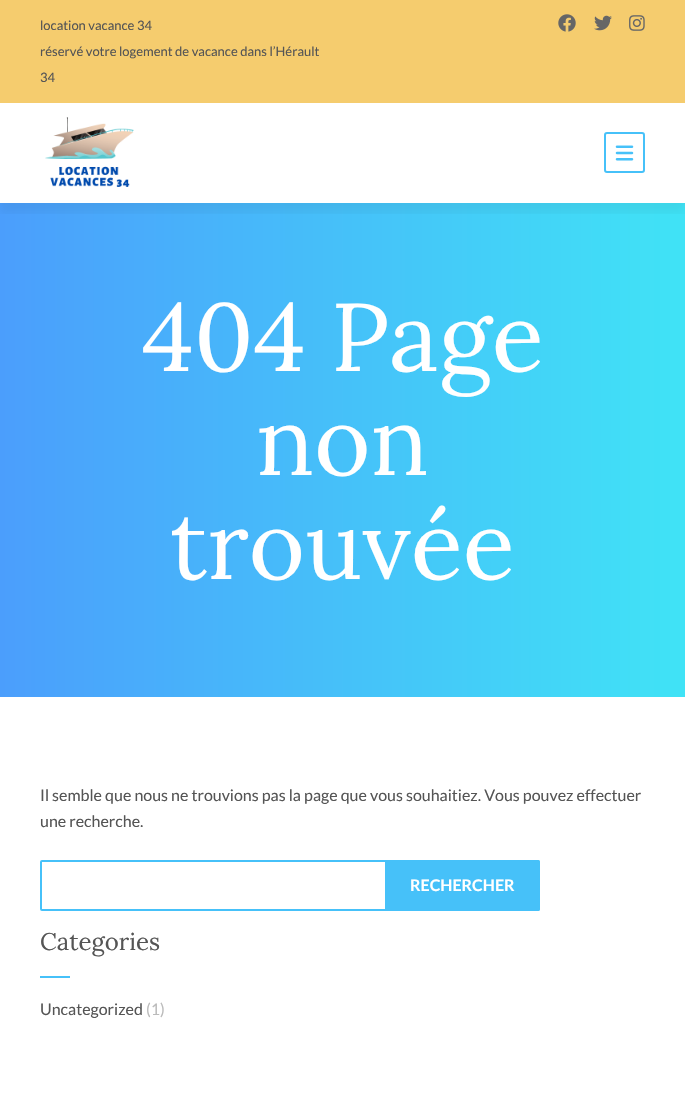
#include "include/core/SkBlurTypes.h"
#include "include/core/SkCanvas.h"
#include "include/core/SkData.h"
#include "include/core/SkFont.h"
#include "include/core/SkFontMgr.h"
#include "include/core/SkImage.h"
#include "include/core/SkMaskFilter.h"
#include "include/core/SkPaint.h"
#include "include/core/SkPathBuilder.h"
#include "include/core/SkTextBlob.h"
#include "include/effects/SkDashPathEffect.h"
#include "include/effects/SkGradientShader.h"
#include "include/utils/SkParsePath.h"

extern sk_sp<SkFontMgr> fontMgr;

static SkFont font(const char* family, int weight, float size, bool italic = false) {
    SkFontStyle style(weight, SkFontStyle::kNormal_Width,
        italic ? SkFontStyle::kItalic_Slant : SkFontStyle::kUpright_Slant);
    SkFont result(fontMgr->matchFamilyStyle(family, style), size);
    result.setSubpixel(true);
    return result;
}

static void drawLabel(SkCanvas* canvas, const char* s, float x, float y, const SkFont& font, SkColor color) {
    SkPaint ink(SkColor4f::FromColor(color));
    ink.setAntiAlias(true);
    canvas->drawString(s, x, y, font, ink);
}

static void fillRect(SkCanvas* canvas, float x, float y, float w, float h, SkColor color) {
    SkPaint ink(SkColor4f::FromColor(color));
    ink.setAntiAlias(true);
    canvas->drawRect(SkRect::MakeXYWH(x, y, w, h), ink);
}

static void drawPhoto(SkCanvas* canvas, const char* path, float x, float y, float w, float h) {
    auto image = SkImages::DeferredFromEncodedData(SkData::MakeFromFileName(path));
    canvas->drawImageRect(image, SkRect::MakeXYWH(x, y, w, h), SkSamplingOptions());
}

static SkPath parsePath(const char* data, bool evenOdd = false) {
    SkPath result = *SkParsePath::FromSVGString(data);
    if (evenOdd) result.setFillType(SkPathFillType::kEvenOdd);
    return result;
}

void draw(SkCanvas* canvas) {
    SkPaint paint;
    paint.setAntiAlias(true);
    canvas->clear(0xFFFFFFFF);
    fillRect(canvas, 0, 0, 685, 103, 0xFFF5CC6E);
    SkFont font1 = font("Lato", 400, 13);
    drawLabel(canvas, "location vacance 34", 40, 30, font1, 0xFF555555);
    drawLabel(canvas, "réservé votre logement de vacance dans l’Hérault", 40, 56, font1, 0xFF555555);
    drawLabel(canvas, "34", 40, 82, font1, 0xFF555555);
    drawPhoto(canvas, "assets/img1.png", 558, 14, 18, 18);
    drawPhoto(canvas, "assets/img2.png", 594, 15, 18, 16);
    drawPhoto(canvas, "assets/img3.png", 629, 15, 16, 16);
    {
        const SkColor colors[] = {0xFF4B9EFC, 0xFF40E3F6};
        const float stops[] = {0, 1};
        const SkPoint ends[] = {{0, 450}, {685, 450}};
        paint.setShader(SkGradientShader::MakeLinear(ends, colors, stops, 2, SkTileMode::kClamp));
        paint.setAlpha(255);
    }
    canvas->drawRect(SkRect::MakeXYWH(0, 203, 685, 494), paint);
    canvas->save();
    canvas->clipRect(SkRect::MakeXYWH(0, 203, 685, 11));
    paint.setShader(nullptr);
    paint.setColor(0x0D000000);
    paint.setMaskFilter(SkMaskFilter::MakeBlur(kNormal_SkBlurStyle, 5));
    canvas->drawRect(SkRect::MakeXYWH(0, 113, 685, 100), paint);
    paint.setMaskFilter(nullptr);
    canvas->restore();
    drawPhoto(canvas, "assets/img4.png", 45, 117, 89, 70);
    paint.setStroke(true);
    paint.setStrokeWidth(2);
    paint.setColor(0xFF46C1F9);
    canvas->drawRoundRect(SkRect::MakeXYWH(605, 133, 39, 39), 2, 2, paint);
    drawPhoto(canvas, "assets/img5.png", 615, 145, 19, 16);
    SkFont font2 = font("Lora", 400, 96);
    drawLabel(canvas, "404 Page", 142, 371, font2, 0xFFFFFFFF);
    drawLabel(canvas, "non", 256, 475, font2, 0xFFFFFFFF);
    drawLabel(canvas, "trouvée", 170, 579, font2, 0xFFFFFFFF);
    SkFont font3 = font("Lato", 400, 16);
    drawLabel(canvas, "Il semble que nous ne trouvions pas la page que vous souhaitiez. Vous pouvez effectuer", 40, 801, font3, 0xFF555555);
    drawLabel(canvas, "une recherche.", 40, 827, font3, 0xFF555555);
    canvas->drawRoundRect(SkRect::MakeXYWH(41, 861, 498, 49), 1, 1, paint);
    paint.setStroke(false);
    canvas->drawPath(parsePath("M386 861H538C538.5 861 539 861.5 539 862V909C539 909.5 538.5 910 538 910H386Z"), paint);
    paint.setStroke(true);
    canvas->drawPath(parsePath("M386 861H538C538.5 861 539 861.5 539 862V909C539 909.5 538.5 910 538 910H386Z"), paint);
    SkFont font4 = font("Lato", 700, 16);
    drawLabel(canvas, "RECHERCHER", 410, 891, font4, 0xFFFFFFFF);
    SkFont font5 = font("Lora", 400, 24);
    drawLabel(canvas, "Categories", 40, 950, font5, 0xFF555555);
    fillRect(canvas, 40, 976, 30, 2, 0xFF46C1F9);
    drawLabel(canvas, "Uncategorized", 40, 1015, font3, 0xFF555555);
    drawLabel(canvas, "(1)", 146, 1015, font3, 0xFFBBBBBB);
}
